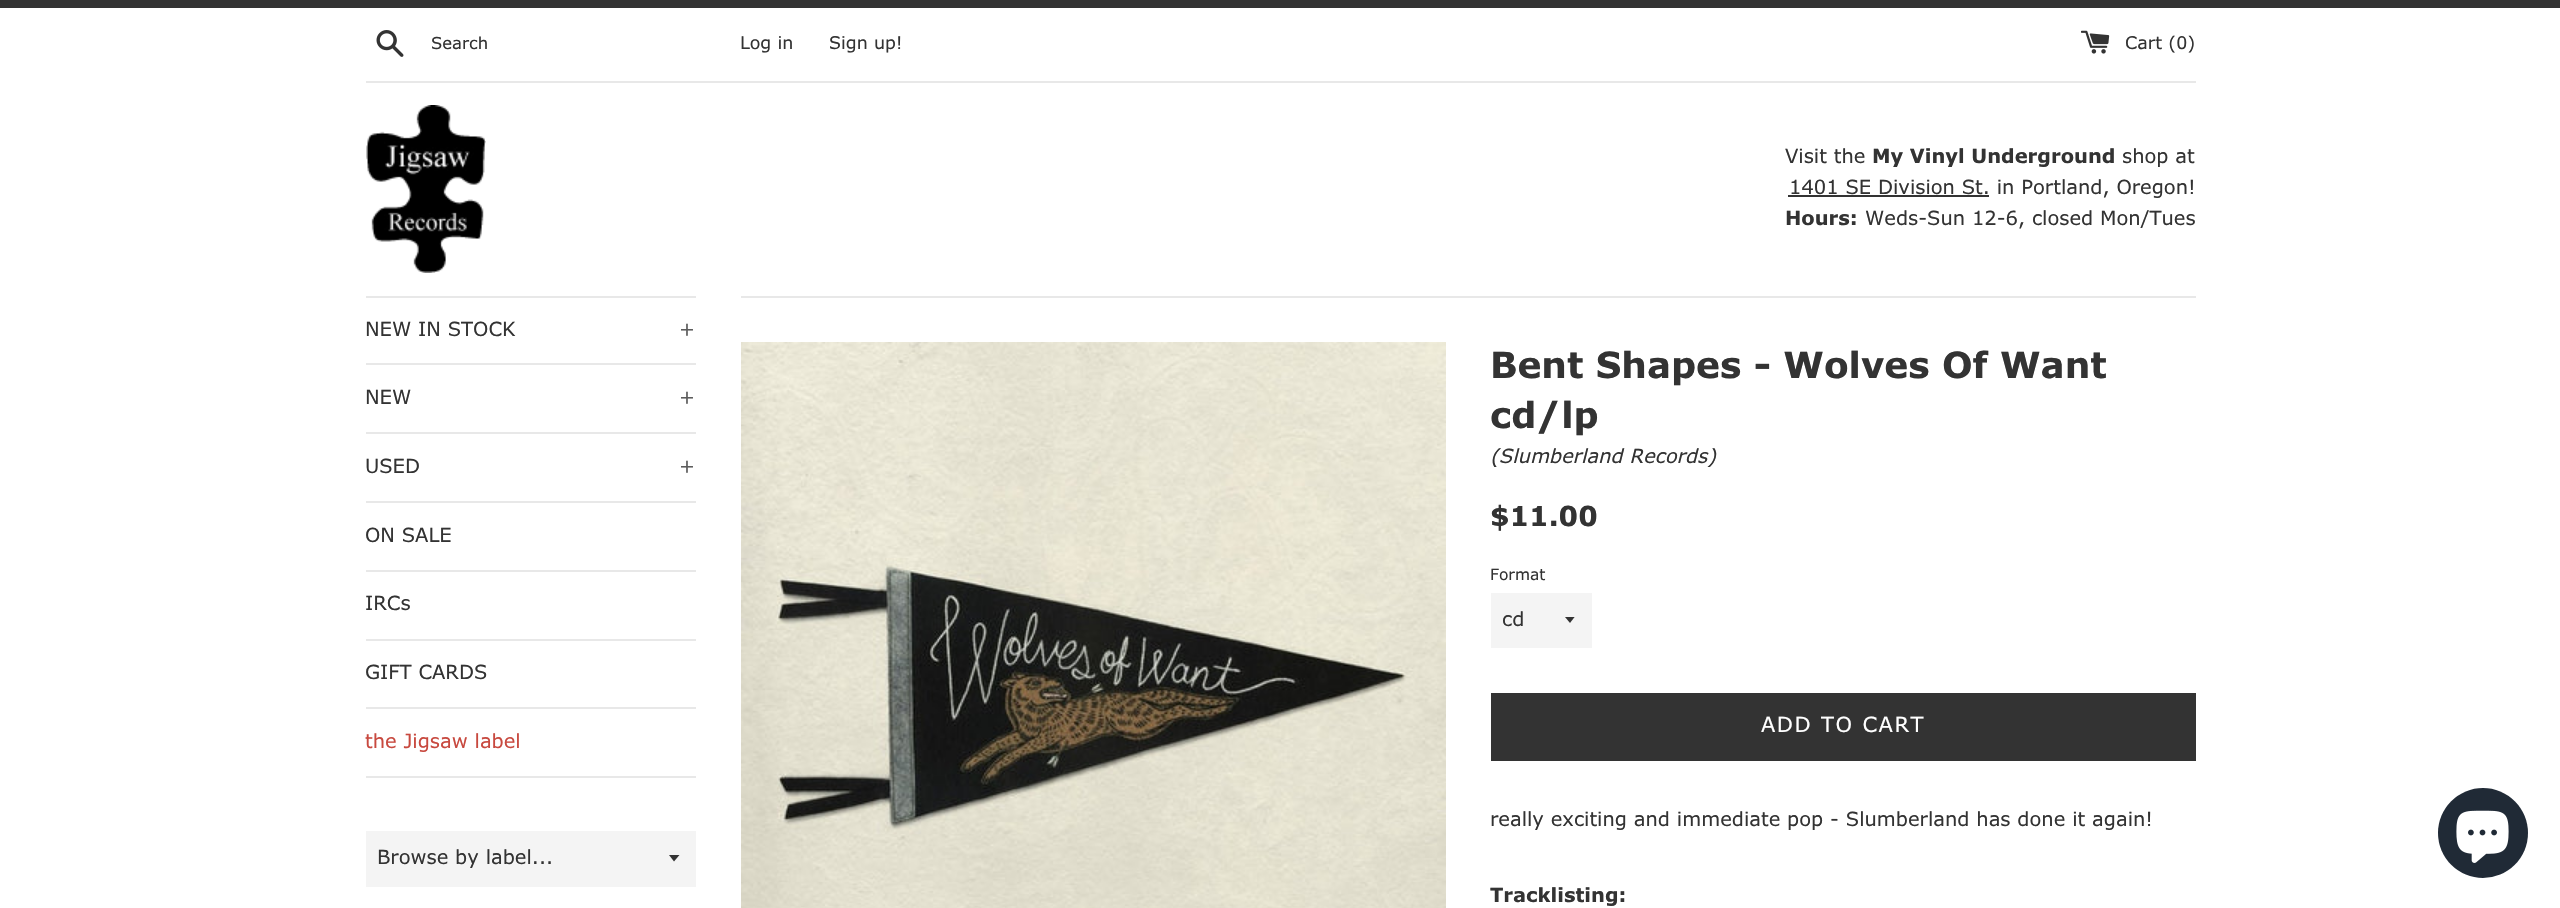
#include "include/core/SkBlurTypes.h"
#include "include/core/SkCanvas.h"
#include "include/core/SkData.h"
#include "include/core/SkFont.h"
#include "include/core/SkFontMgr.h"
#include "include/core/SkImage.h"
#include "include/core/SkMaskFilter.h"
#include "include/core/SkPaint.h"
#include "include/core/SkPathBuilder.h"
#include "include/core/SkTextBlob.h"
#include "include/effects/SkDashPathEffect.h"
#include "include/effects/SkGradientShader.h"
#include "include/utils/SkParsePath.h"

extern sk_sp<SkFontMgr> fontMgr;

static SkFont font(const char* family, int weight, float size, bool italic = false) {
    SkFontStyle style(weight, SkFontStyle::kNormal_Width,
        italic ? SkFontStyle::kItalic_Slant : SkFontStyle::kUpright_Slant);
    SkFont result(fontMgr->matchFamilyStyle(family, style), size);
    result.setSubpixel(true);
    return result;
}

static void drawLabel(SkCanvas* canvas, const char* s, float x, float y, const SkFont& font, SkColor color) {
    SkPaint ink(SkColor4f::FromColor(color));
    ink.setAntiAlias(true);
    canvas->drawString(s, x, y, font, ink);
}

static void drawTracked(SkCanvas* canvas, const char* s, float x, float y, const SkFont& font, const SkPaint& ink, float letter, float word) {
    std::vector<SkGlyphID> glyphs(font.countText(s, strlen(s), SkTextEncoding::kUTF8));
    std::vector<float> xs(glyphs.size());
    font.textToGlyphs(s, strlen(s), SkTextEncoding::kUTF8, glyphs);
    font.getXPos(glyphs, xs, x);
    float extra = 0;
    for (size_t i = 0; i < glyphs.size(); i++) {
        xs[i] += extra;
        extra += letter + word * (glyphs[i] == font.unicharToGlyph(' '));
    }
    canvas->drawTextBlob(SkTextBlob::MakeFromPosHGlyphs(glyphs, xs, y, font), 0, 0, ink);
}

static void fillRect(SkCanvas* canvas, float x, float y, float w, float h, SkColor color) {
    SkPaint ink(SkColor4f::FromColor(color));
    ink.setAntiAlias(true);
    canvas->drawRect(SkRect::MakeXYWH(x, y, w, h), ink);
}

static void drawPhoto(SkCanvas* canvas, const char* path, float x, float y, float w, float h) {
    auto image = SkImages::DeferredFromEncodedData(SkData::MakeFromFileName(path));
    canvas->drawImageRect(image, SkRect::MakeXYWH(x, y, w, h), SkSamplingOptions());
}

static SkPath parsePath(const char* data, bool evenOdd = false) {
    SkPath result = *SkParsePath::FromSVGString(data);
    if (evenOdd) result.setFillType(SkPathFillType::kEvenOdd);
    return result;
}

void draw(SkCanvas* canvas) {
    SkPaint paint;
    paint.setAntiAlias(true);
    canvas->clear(0xFFFFFFFF);
    fillRect(canvas, 0, 0, 2560, 8, 0xFF333333);
    drawPhoto(canvas, "assets/img1.png", 376, 30, 28, 27);
    SkFont font1 = font("Verdana", 400, 16.5f);
    drawLabel(canvas, "Search", 431, 49, font1, 0xFF333333);
    SkFont font2 = font("Verdana", 400, 17.5f);
    drawLabel(canvas, "Log in", 740, 49, font2, 0xFF333333);
    drawLabel(canvas, "Sign up!", 829, 49, font2, 0xFF333333);
    drawPhoto(canvas, "assets/img2.png", 2081, 30, 29, 24);
    drawLabel(canvas, "Cart (0)", 2125, 49, font2, 0xFF333333);
    fillRect(canvas, 366, 81, 1830, 2, 0xFFE8E8E8);
    drawPhoto(canvas, "assets/img3.png", 366, 105, 120, 168);
    SkFont font3 = font("Verdana", 400, 19.5f);
    drawLabel(canvas, "Visit the", 1785, 163, font3, 0xFF333333);
    SkFont font4 = font("Verdana", 700, 19.5f);
    drawLabel(canvas, "My Vinyl Underground", 1872, 163, font4, 0xFF333333);
    drawLabel(canvas, "shop at", 2122, 163, font3, 0xFF333333);
    fillRect(canvas, 1788, 195, 201, 2, 0xFF333333);
    drawLabel(canvas, "1401 SE Division St. in Portland, Oregon!", 1789, 194, font3, 0xFF333333);
    drawLabel(canvas, "Hours:", 1785, 225, font4, 0xFF333333);
    drawLabel(canvas, "Weds-Sun 12-6, closed Mon/Tues", 1865, 225, font3, 0xFF333333);
    fillRect(canvas, 366, 296, 330, 2, 0xFFE8E8E8);
    fillRect(canvas, 366, 363, 330, 2, 0xFFE8E8E8);
    drawLabel(canvas, "NEW IN STOCK", 365, 336, font3, 0xFF333333);
    drawLabel(canvas, "+", 679, 336, font3, 0xFF5C5C5C);
    fillRect(canvas, 366, 432, 330, 2, 0xFFE8E8E8);
    drawLabel(canvas, "NEW", 365, 404, font3, 0xFF333333);
    drawLabel(canvas, "+", 679, 404, font3, 0xFF5C5C5C);
    fillRect(canvas, 366, 501, 330, 2, 0xFFE8E8E8);
    drawLabel(canvas, "USED", 365, 473, font3, 0xFF333333);
    drawLabel(canvas, "+", 679, 473, font3, 0xFF5C5C5C);
    fillRect(canvas, 366, 570, 330, 2, 0xFFE8E8E8);
    drawLabel(canvas, "ON SALE", 365, 542, font3, 0xFF333333);
    fillRect(canvas, 366, 639, 330, 2, 0xFFE8E8E8);
    drawLabel(canvas, "IRCs", 365, 610, font3, 0xFF333333);
    fillRect(canvas, 366, 707, 330, 2, 0xFFE8E8E8);
    drawLabel(canvas, "GIFT CARDS", 365, 679, font3, 0xFF333333);
    fillRect(canvas, 366, 776, 330, 2, 0xFFE8E8E8);
    drawLabel(canvas, "the Jigsaw label", 365, 748, font3, 0xFFC8493F);
    fillRect(canvas, 366, 831, 330, 56, 0xFFF4F4F4);
    paint.setColor(0xFF333333);
    canvas->drawPath(parsePath("M669 855L674 861.5L679.5 855Z"), paint);
    drawLabel(canvas, "Browse by label...", 377, 864, font3, 0xFF333333);
    fillRect(canvas, 741, 296, 1455, 2, 0xFFE8E8E8);
    drawPhoto(canvas, "assets/img4.png", 741, 342, 705, 566);
    SkFont font5 = font("Verdana", 700, 36);
    drawLabel(canvas, "Bent Shapes - Wolves Of Want", 1490, 378, font5, 0xFF333333);
    drawLabel(canvas, "cd/lp", 1490, 428, font5, 0xFF333333);
    SkFont font6 = font("Verdana", 400, 19.5f, true);
    drawLabel(canvas, "(Slumberland Records)", 1490, 463, font6, 0xFF333333);
    SkFont font7 = font("Verdana", 700, 27.5f);
    drawLabel(canvas, "$11.00", 1490, 526, font7, 0xFF333333);
    SkFont font8 = font("Verdana", 400, 15.5f);
    drawLabel(canvas, "Format", 1490, 580, font8, 0xFF333333);
    fillRect(canvas, 1491, 593, 101, 55, 0xFFF4F4F4);
    canvas->save();
    canvas->clipRect(SkRect::MakeXYWH(1565, 617, 12, 7));
    canvas->drawPath(parsePath("M1564.5 616.5L1570 623L1575 616.5Z"), paint);
    canvas->restore();
    drawLabel(canvas, "cd", 1502, 626, font3, 0xFF333333);
    fillRect(canvas, 1491, 693, 705, 68, 0xFF333333);
    SkFont font9 = font("Verdana", 400, 21);
    paint.setColor(0xFFFFFFFF);
    drawTracked(canvas, "ADD TO CART", 1761, 732, font9, paint, 1.5f, 0);
    drawLabel(canvas, "really exciting and immediate pop - Slumberland has done it again!", 1490, 826, font3, 0xFF333333);
    drawLabel(canvas, "Tracklisting:", 1490, 902, font4, 0xFF333333);
    paint.setColor(0xFF202A36);
    canvas->drawCircle(2483, 833, 45, paint);
    drawPhoto(canvas, "assets/img5.png", 2456, 810, 53, 53);
}
